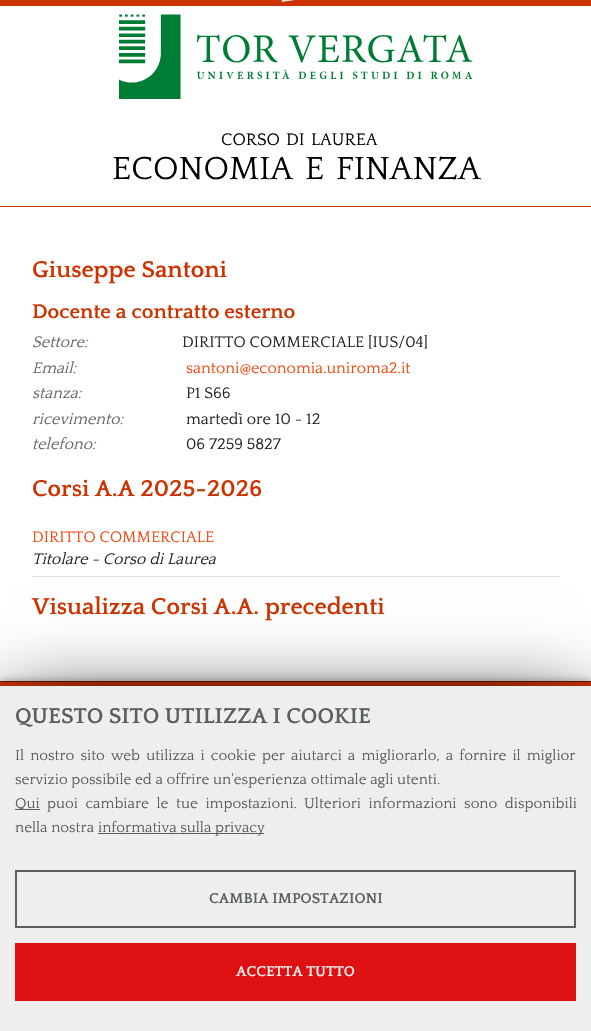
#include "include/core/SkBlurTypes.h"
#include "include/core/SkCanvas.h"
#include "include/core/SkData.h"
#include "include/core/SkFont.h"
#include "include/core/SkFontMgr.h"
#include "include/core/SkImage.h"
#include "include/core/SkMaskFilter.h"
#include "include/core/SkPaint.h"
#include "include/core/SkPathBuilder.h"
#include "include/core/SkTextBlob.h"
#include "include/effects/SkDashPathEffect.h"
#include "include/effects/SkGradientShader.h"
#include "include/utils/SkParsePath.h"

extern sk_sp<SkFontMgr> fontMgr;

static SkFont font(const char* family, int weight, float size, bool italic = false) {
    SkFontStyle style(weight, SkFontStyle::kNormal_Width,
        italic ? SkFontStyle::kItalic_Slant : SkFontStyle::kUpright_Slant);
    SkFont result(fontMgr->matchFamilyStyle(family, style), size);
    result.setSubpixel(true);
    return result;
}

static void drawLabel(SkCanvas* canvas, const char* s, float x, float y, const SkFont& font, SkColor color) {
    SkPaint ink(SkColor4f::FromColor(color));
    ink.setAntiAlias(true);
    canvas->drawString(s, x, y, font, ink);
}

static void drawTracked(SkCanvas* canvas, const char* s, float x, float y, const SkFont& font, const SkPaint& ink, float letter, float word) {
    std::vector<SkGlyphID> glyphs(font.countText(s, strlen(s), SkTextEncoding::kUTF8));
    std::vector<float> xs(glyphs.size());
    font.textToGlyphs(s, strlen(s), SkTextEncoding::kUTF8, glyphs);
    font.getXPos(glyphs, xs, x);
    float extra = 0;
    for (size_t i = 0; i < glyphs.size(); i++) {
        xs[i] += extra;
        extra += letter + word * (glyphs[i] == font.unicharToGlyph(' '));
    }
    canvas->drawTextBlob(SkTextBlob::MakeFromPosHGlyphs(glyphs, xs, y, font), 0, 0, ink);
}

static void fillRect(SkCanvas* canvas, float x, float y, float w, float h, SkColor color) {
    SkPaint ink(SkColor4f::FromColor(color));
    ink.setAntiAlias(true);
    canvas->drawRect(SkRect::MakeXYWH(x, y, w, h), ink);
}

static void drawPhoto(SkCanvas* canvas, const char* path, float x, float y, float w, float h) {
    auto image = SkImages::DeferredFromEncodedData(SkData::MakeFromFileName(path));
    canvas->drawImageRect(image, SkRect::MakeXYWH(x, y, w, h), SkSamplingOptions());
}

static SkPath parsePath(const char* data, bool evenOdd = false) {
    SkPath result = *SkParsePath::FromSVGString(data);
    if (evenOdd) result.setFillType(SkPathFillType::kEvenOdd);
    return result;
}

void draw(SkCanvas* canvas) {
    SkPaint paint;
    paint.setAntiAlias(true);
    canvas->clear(0xFFFFFFFF);
    fillRect(canvas, 0, 206, 591, 1, 0xFFCC3300);
    fillRect(canvas, 0, 0, 591, 6, 0xFFCC3300);
    drawPhoto(canvas, "assets/img1.png", 281, 0, 14, 2);
    drawPhoto(canvas, "assets/img2.png", 119, 14, 354, 85);
    SkFont font1 = font("Quattrocento", 400, 17.5f);
    drawLabel(canvas, "CORSO", 221, 145, font1, 0xFF000000);
    drawLabel(canvas, "DI", 286, 145, font1, 0xFF000000);
    drawLabel(canvas, "LAUREA", 311, 145, font1, 0xFF000000);
    SkFont font2 = font("Quattrocento", 400, 33.5f);
    drawLabel(canvas, "ECONOMIA", 112, 179, font2, 0xFF000000);
    drawLabel(canvas, "E", 305, 179, font2, 0xFF000000);
    drawLabel(canvas, "FINANZA", 336, 179, font2, 0xFF000000);
    SkFont font3 = font("Quattrocento", 700, 24);
    drawLabel(canvas, "Giuseppe Santoni", 32, 277, font3, 0xFFCC3300);
    SkFont font4 = font("Quattrocento", 700, 20.75f);
    drawLabel(canvas, "Docente a contratto esterno", 32, 318, font4, 0xFFCC3300);
    SkFont font5 = font("Quattrocento", 400, 16, true);
    drawLabel(canvas, "Settore:", 32, 347, font5, 0xFF666666);
    SkFont font6 = font("Quattrocento", 400, 16);
    drawLabel(canvas, "DIRITTO COMMERCIALE [IUS/04]", 182, 347, font6, 0xFF222222);
    drawLabel(canvas, "Email:", 32, 373, font5, 0xFF666666);
    drawLabel(canvas, "santoni@economia.uniroma2.it", 186, 373, font6, 0xFFF2460D);
    drawLabel(canvas, "stanza:", 32, 398, font5, 0xFF666666);
    drawLabel(canvas, "P1 S66", 186, 398, font6, 0xFF222222);
    drawLabel(canvas, "ricevimento:", 32, 424, font5, 0xFF666666);
    drawLabel(canvas, "martedì ore 10 - 12", 186, 424, font6, 0xFF222222);
    drawLabel(canvas, "telefono:", 32, 449, font5, 0xFF666666);
    drawLabel(canvas, "06 7259 5827", 186, 449, font6, 0xFF222222);
    drawLabel(canvas, "Corsi A.A 2025-2026", 32, 496, font3, 0xFFCC3300);
    paint.setStroke(true);
    paint.setStrokeWidth(1);
    paint.setColor(0xFFCCCCCC);
    paint.setPathEffect(SkDashPathEffect::Make({{1, 1}}, 0));
    canvas->drawPath(parsePath("M32 576.5H559"), paint);
    paint.setPathEffect(nullptr);
    drawLabel(canvas, "DIRITTO COMMERCIALE", 32, 542, font6, 0xFFF2460D);
    drawLabel(canvas, "Titolare - Corso di Laurea", 32, 564, font5, 0xFF222222);
    drawLabel(canvas, "Visualizza Corsi A.A. precedenti", 32, 614, font3, 0xFFCC3300);
    paint.setStroke(false);
    paint.setColor(0x4D000000);
    paint.setMaskFilter(SkMaskFilter::MakeBlur(kNormal_SkBlurStyle, 4));
    canvas->drawRect(SkRect::MakeXYWH(0, 681, 591, 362), paint);
    paint.setMaskFilter(nullptr);
    fillRect(canvas, 0, 682, 591, 4, 0xFFCC3300);
    fillRect(canvas, 0, 681, 591, 1, 0xFF661A00);
    paint.setColor(0xFF000000);
    paint.setMaskFilter(SkMaskFilter::MakeBlur(kNormal_SkBlurStyle, 40));
    canvas->drawRect(SkRect::MakeXYWH(8, 710, 575, 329), paint);
    paint.setMaskFilter(nullptr);
    fillRect(canvas, 0, 686, 591, 345, 0xFFEEEEEE);
    SkFont font7 = font("Quattrocento", 700, 22.5f);
    drawLabel(canvas, "QUESTO SITO UTILIZZA I COOKIE", 15, 723, font7, 0xFF595F60);
    SkFont font8 = font("Quattrocento", 400, 15);
    paint.setColor(0xFF595F60);
    drawTracked(canvas, "Il nostro sito web utilizza i cookie per aiutarci a migliorarlo, a fornire il miglior", 15, 760, font8, paint, 0, 2.5f);
    drawLabel(canvas, "servizio possibile ed a offrire un'esperienza ottimale agli utenti.", 15, 784, font8, 0xFF595F60);
    fillRect(canvas, 15, 809, 25, 1, 0xFF595F60);
    drawLabel(canvas, "Qui", 15, 808, font8, 0xFF595F60);
    drawTracked(canvas, "puoi cambiare le tue impostazioni.", 47, 808, font8, paint, 0, 4);
    drawTracked(canvas, "Ulteriori informazioni sono disponibili", 304, 808, font8, paint, 0, 4);
    drawLabel(canvas, "nella nostra", 15, 832, font8, 0xFF595F60);
    fillRect(canvas, 98, 833, 166, 1, 0xFF595F60);
    drawLabel(canvas, "informativa sulla privacy", 98, 832, font8, 0xFF595F60);
    paint.setStroke(true);
    paint.setStrokeWidth(2);
    canvas->drawRect(SkRect::MakeXYWH(16, 871, 559, 56), paint);
    paint.setStrokeWidth(2.1f);
    paint.setColor(0xFFEEEEEE);
    canvas->drawPath(parsePath("M17.5 914.5L20 917L25.5 910.5"), paint);
    SkFont font9 = font("Quattrocento", 700, 15);
    drawLabel(canvas, "CAMBIA IMPOSTAZIONI", 209, 903, font9, 0xFF595F60);
    fillRect(canvas, 15, 943, 561, 58, 0xFFDD1111);
    drawLabel(canvas, "ACCETTA TUTTO", 236, 976, font9, 0xFFEEEEEE);
}
